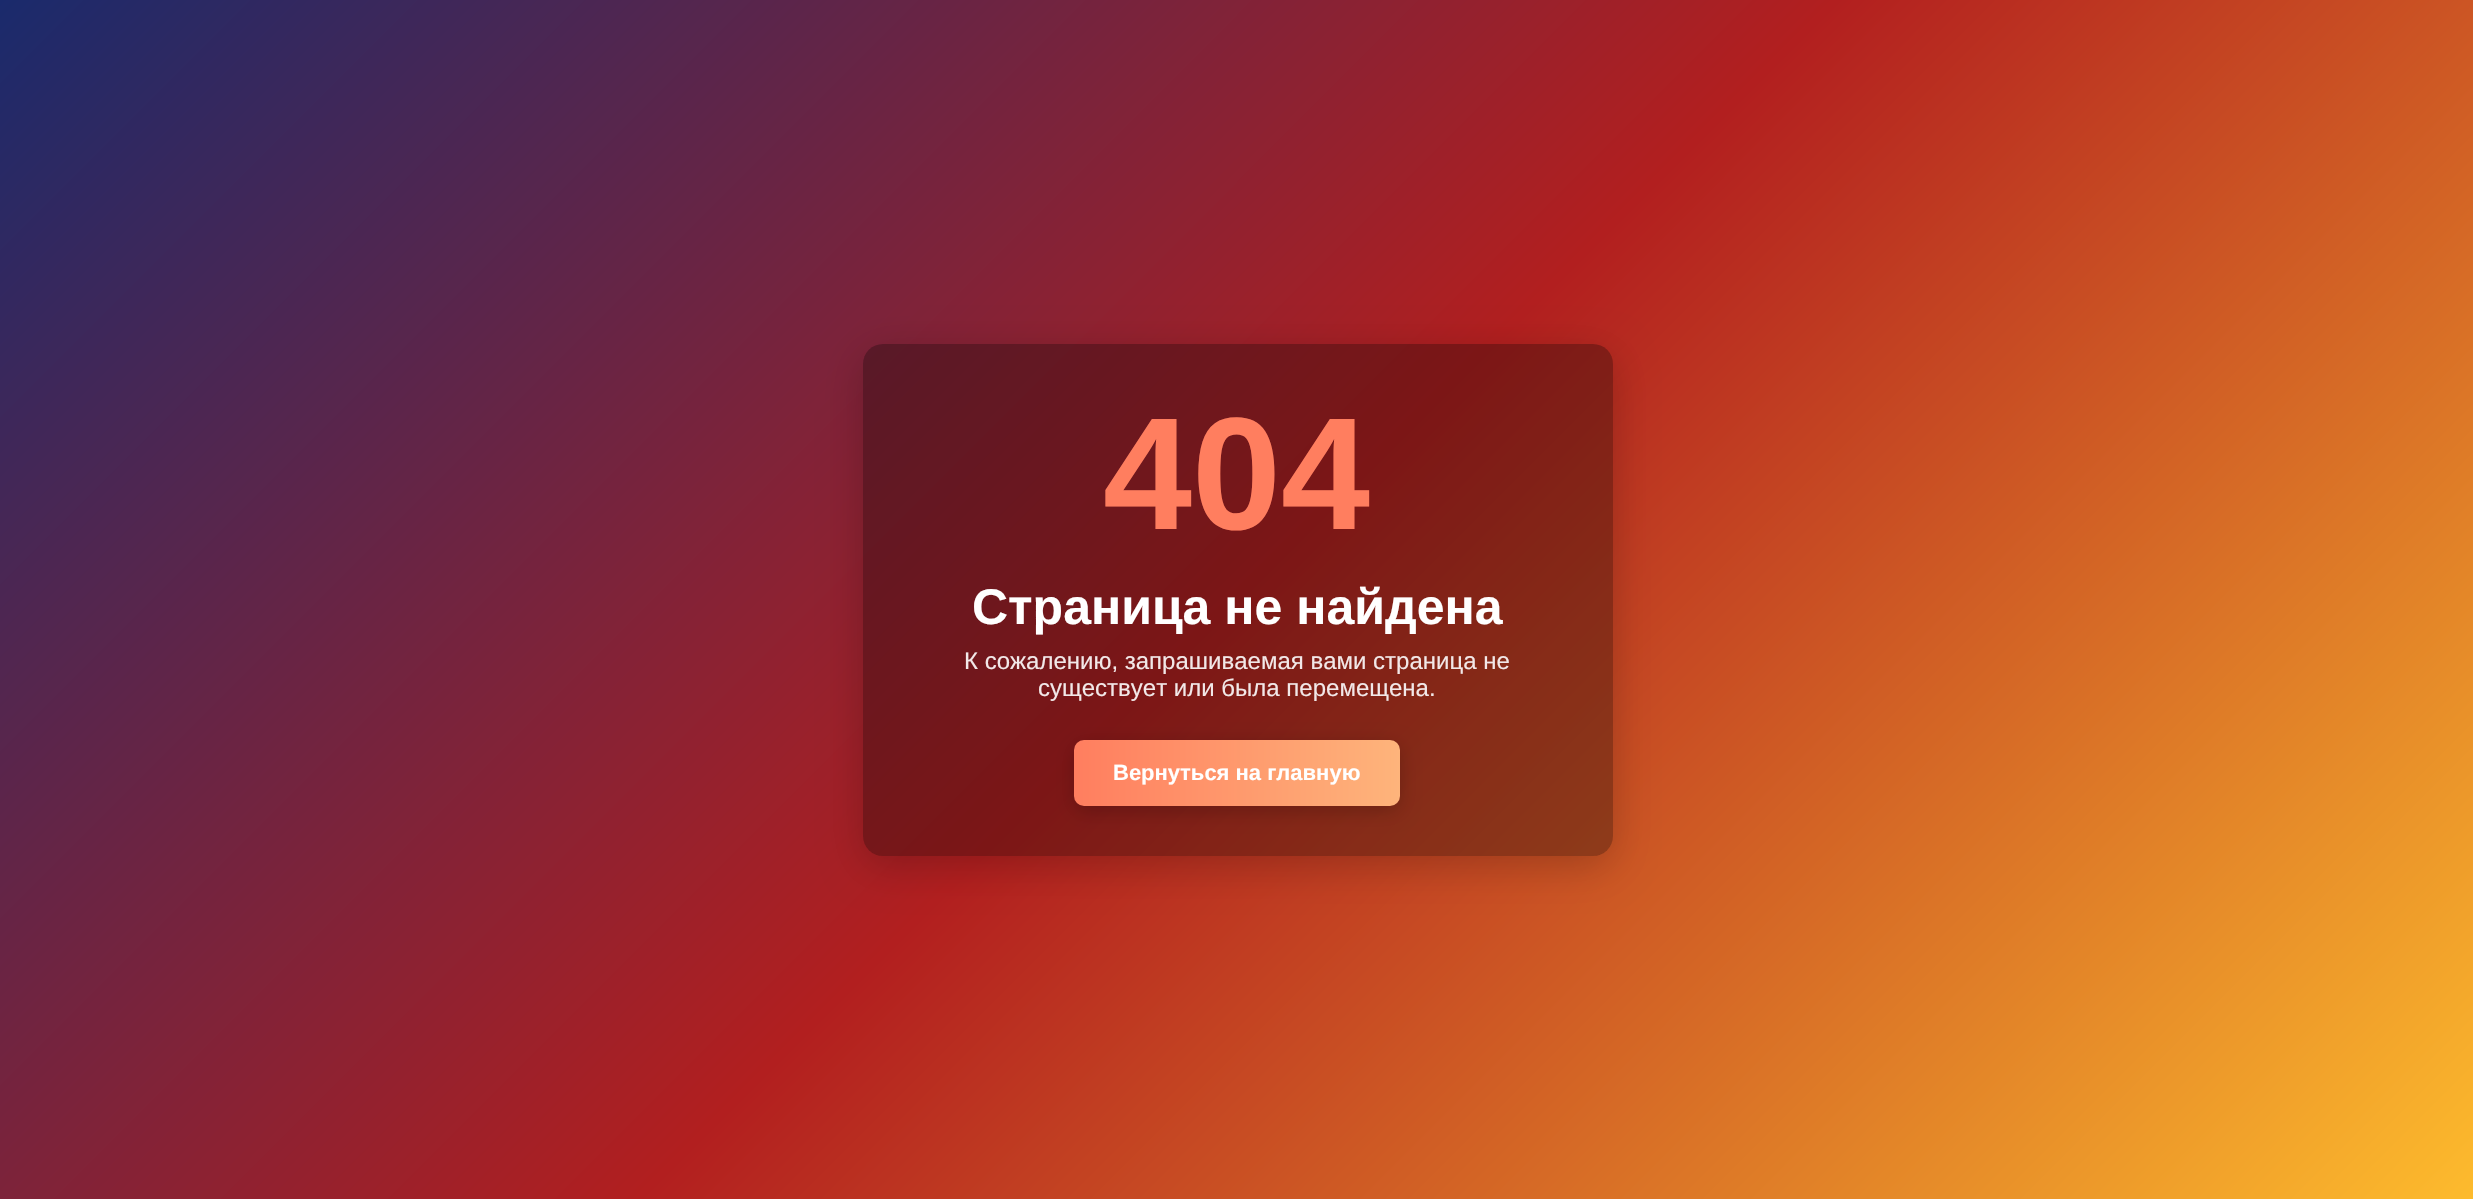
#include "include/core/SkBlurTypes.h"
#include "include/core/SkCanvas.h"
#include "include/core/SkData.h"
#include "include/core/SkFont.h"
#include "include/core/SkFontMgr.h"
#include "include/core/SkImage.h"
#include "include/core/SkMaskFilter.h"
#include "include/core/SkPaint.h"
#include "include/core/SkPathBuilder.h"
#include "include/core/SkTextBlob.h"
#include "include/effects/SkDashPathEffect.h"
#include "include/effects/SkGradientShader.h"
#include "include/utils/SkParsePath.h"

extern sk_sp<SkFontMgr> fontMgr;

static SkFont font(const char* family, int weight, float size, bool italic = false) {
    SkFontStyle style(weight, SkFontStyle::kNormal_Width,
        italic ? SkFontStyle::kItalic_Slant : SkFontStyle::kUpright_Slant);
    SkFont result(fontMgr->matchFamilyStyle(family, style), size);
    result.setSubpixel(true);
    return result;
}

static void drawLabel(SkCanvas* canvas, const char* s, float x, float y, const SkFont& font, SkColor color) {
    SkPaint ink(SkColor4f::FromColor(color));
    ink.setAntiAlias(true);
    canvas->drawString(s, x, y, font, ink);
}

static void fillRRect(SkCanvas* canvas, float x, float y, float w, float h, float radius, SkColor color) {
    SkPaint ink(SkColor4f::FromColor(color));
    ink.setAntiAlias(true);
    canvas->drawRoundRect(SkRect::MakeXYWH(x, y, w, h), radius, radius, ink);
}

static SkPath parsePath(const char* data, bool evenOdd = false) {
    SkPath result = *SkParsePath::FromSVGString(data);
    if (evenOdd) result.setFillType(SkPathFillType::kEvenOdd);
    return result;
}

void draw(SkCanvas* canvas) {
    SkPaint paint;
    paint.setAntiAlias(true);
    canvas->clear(0xFFFFFFFF);
    {
        const SkColor colors[] = {0xFF1A2A6C, 0xFFB21F1F, 0xFFFDBB2D};
        const float stops[] = {0, 0.5f, 1};
        const SkPoint ends[] = {{318, -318}, {2155, 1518}};
        paint.setShader(SkGradientShader::MakeLinear(ends, colors, stops, 3, SkTileMode::kClamp));
        paint.setAlpha(255);
    }
    canvas->drawRect(SkRect::MakeXYWH(0, 0, 2473, 1199), paint);
    canvas->save();
    canvas->clipPath(parsePath("M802 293H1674V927H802ZM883 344H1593C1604 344 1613 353 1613 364V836C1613 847 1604 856 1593 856H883C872 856 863 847 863 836V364C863 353 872 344 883 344Z", true), true);
    paint.setShader(nullptr);
    paint.setColor(0x33000000);
    paint.setMaskFilter(SkMaskFilter::MakeBlur(kNormal_SkBlurStyle, 20));
    canvas->drawRoundRect(SkRect::MakeXYWH(863, 354, 750, 512), 20, 20, paint);
    paint.setMaskFilter(nullptr);
    canvas->restore();
    fillRRect(canvas, 863, 344, 750, 512, 20, 0x4D000000);
    SkFont font1 = font("Liberation Sans", 700, 160);
    drawLabel(canvas, "404", 1103, 529, font1, 0xFFFF7E5F);
    SkFont font2 = font("Liberation Sans", 700, 50);
    drawLabel(canvas, "Страница не найдена", 972, 624, font2, 0xFFFFFFFF);
    SkFont font3 = font("Liberation Sans", 400, 24);
    drawLabel(canvas, "К сожалению, запрашиваемая вами страница не", 964, 669, font3, 0xFFF2E8E8);
    drawLabel(canvas, "существует или была перемещена.", 1038, 696, font3, 0xFFF2E8E8);
    paint.setMaskFilter(SkMaskFilter::MakeBlur(kNormal_SkBlurStyle, 9.5f));
    canvas->drawRoundRect(SkRect::MakeXYWH(1074, 745, 326, 66), 10, 10, paint);
    paint.setMaskFilter(nullptr);
    {
        const SkColor colors[] = {0xFFFF7E5F, 0xFFFEB47B};
        const float stops[] = {0, 1};
        const SkPoint ends[] = {{1074, 773}, {1400, 773}};
        paint.setShader(SkGradientShader::MakeLinear(ends, colors, stops, 2, SkTileMode::kClamp));
        paint.setAlpha(255);
    }
    canvas->drawRoundRect(SkRect::MakeXYWH(1074, 740, 326, 66), 10, 10, paint);
    SkFont font4 = font("Liberation Sans", 700, 22);
    drawLabel(canvas, "Вернуться на главную", 1113, 780, font4, 0xFFFFFFFF);
}
